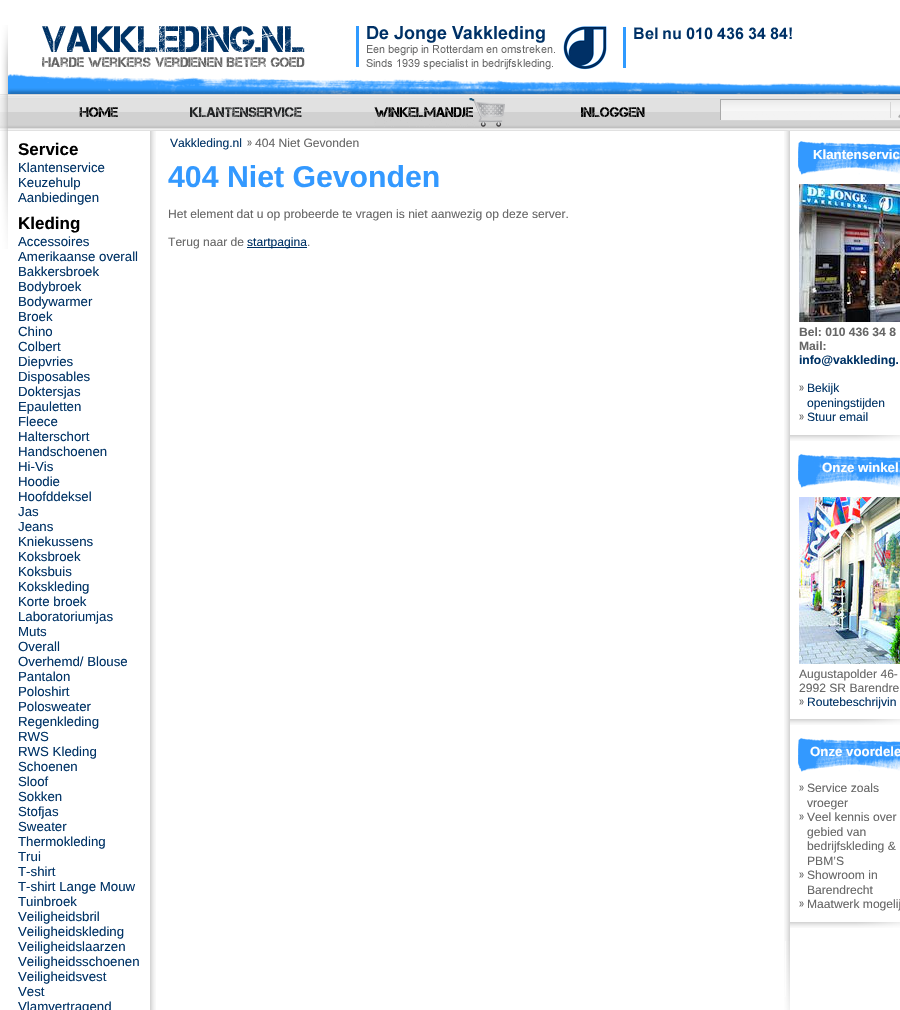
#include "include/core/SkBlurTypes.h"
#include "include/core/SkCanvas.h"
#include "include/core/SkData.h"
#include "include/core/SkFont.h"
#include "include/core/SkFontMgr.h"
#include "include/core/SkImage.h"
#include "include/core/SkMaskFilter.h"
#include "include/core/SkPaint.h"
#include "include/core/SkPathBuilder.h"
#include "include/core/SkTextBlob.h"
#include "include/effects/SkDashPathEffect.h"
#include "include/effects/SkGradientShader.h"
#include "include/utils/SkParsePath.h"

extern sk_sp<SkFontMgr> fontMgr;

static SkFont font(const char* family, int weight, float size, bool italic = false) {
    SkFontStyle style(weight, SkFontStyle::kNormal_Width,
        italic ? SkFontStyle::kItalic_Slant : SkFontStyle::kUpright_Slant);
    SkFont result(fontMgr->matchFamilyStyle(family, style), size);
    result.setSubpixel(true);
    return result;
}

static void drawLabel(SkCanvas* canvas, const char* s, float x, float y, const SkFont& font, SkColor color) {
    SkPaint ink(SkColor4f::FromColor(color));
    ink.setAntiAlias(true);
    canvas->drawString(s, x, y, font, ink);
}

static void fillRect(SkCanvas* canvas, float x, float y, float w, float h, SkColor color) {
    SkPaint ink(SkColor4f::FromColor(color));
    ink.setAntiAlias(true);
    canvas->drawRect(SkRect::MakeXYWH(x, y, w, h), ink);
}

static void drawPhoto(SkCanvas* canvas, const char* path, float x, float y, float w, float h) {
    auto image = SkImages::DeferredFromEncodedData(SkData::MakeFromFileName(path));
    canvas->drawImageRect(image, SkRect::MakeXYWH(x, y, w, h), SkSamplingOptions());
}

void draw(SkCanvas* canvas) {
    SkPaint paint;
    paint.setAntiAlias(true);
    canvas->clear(0xFFFFFFFF);
    drawPhoto(canvas, "assets/img1.png", 0, 94, 1, 37);
    drawPhoto(canvas, "assets/img2.png", 1, 25, 7, 224);
    drawPhoto(canvas, "assets/img3.png", 8, 26, 892, 105);
    drawPhoto(canvas, "assets/img4.png", 42, 25, 263, 42);
    drawPhoto(canvas, "assets/img5.png", 79, 107, 39, 10);
    drawPhoto(canvas, "assets/img6.png", 190, 107, 112, 10);
    drawPhoto(canvas, "assets/img7.png", 374, 98, 131, 29);
    drawPhoto(canvas, "assets/img8.png", 581, 107, 64, 10);
    drawPhoto(canvas, "assets/img9.png", 720, 99, 180, 22);
    drawPhoto(canvas, "assets/img10.png", 898, 114, 2, 4);
    drawPhoto(canvas, "assets/img11.png", 150, 131, 6, 879);
    SkFont font1 = font("Liberation Sans", 700, 17);
    drawLabel(canvas, "Service", 18, 155, font1, 0xFF000000);
    SkFont font2 = font("Liberation Sans", 400, 13.25f);
    drawLabel(canvas, "Klantenservice", 18, 172, font2, 0xFF003366);
    drawLabel(canvas, "Keuzehulp", 18, 187, font2, 0xFF003366);
    drawLabel(canvas, "Aanbiedingen", 18, 202, font2, 0xFF003366);
    drawLabel(canvas, "Kleding", 18, 229, font1, 0xFF000000);
    drawLabel(canvas, "Accessoires", 18, 246, font2, 0xFF003366);
    drawLabel(canvas, "Amerikaanse overall", 18, 261, font2, 0xFF003366);
    drawLabel(canvas, "Bakkersbroek", 18, 276, font2, 0xFF003366);
    drawLabel(canvas, "Bodybroek", 18, 291, font2, 0xFF003366);
    drawLabel(canvas, "Bodywarmer", 18, 306, font2, 0xFF003366);
    drawLabel(canvas, "Broek", 18, 321, font2, 0xFF003366);
    drawLabel(canvas, "Chino", 18, 336, font2, 0xFF003366);
    drawLabel(canvas, "Colbert", 18, 351, font2, 0xFF003366);
    drawLabel(canvas, "Diepvries", 18, 366, font2, 0xFF003366);
    drawLabel(canvas, "Disposables", 18, 381, font2, 0xFF003366);
    drawLabel(canvas, "Doktersjas", 18, 396, font2, 0xFF003366);
    drawLabel(canvas, "Epauletten", 18, 411, font2, 0xFF003366);
    drawLabel(canvas, "Fleece", 18, 426, font2, 0xFF003366);
    drawLabel(canvas, "Halterschort", 18, 441, font2, 0xFF003366);
    drawLabel(canvas, "Handschoenen", 18, 456, font2, 0xFF003366);
    drawLabel(canvas, "Hi-Vis", 18, 471, font2, 0xFF003366);
    drawLabel(canvas, "Hoodie", 18, 486, font2, 0xFF003366);
    drawLabel(canvas, "Hoofddeksel", 18, 501, font2, 0xFF003366);
    drawLabel(canvas, "Jas", 18, 516, font2, 0xFF003366);
    drawLabel(canvas, "Jeans", 18, 531, font2, 0xFF003366);
    drawLabel(canvas, "Kniekussens", 18, 546, font2, 0xFF003366);
    drawLabel(canvas, "Koksbroek", 18, 561, font2, 0xFF003366);
    drawLabel(canvas, "Koksbuis", 18, 576, font2, 0xFF003366);
    drawLabel(canvas, "Kokskleding", 18, 591, font2, 0xFF003366);
    drawLabel(canvas, "Korte broek", 18, 606, font2, 0xFF003366);
    drawLabel(canvas, "Laboratoriumjas", 18, 621, font2, 0xFF003366);
    drawLabel(canvas, "Muts", 18, 636, font2, 0xFF003366);
    drawLabel(canvas, "Overall", 18, 651, font2, 0xFF003366);
    drawLabel(canvas, "Overhemd/ Blouse", 18, 666, font2, 0xFF003366);
    drawLabel(canvas, "Pantalon", 18, 681, font2, 0xFF003366);
    drawLabel(canvas, "Poloshirt", 18, 696, font2, 0xFF003366);
    drawLabel(canvas, "Polosweater", 18, 711, font2, 0xFF003366);
    drawLabel(canvas, "Regenkleding", 18, 726, font2, 0xFF003366);
    drawLabel(canvas, "RWS", 18, 741, font2, 0xFF003366);
    drawLabel(canvas, "RWS Kleding", 18, 756, font2, 0xFF003366);
    drawLabel(canvas, "Schoenen", 18, 771, font2, 0xFF003366);
    drawLabel(canvas, "Sloof", 18, 786, font2, 0xFF003366);
    drawLabel(canvas, "Sokken", 18, 801, font2, 0xFF003366);
    drawLabel(canvas, "Stofjas", 18, 816, font2, 0xFF003366);
    drawLabel(canvas, "Sweater", 18, 831, font2, 0xFF003366);
    drawLabel(canvas, "Thermokleding", 18, 846, font2, 0xFF003366);
    drawLabel(canvas, "Trui", 18, 861, font2, 0xFF003366);
    drawLabel(canvas, "T-shirt", 18, 876, font2, 0xFF003366);
    drawLabel(canvas, "T-shirt Lange Mouw", 18, 891, font2, 0xFF003366);
    drawLabel(canvas, "Tuinbroek", 18, 906, font2, 0xFF003366);
    drawLabel(canvas, "Veiligheidsbril", 18, 921, font2, 0xFF003366);
    drawLabel(canvas, "Veiligheidskleding", 18, 936, font2, 0xFF003366);
    drawLabel(canvas, "Veiligheidslaarzen", 18, 951, font2, 0xFF003366);
    drawLabel(canvas, "Veiligheidsschoenen", 18, 966, font2, 0xFF003366);
    drawLabel(canvas, "Veiligheidsvest", 18, 981, font2, 0xFF003366);
    drawLabel(canvas, "Vest", 18, 996, font2, 0xFF003366);
    drawLabel(canvas, "Vlamvertragend", 18, 1011, font2, 0xFF003366);
    SkFont font3 = font("Liberation Sans", 400, 12.1f);
    drawLabel(canvas, "Vakkleding.nl", 170, 147, font3, 0xFF003366);
    drawPhoto(canvas, "assets/img12.png", 247, 140, 5, 6);
    drawLabel(canvas, "404 Niet Gevonden", 255, 147, font3, 0xFF666666);
    SkFont font4 = font("Liberation Sans", 700, 30.25f);
    drawLabel(canvas, "404 Niet Gevonden", 168, 187, font4, 0xFF3399FF);
    drawLabel(canvas, "Het element dat u op probeerde te vragen is niet aanwezig op deze server.", 168, 218, font3, 0xFF666666);
    drawLabel(canvas, "Terug naar de", 168, 246, font3, 0xFF666666);
    fillRect(canvas, 247, 247, 60, 1, 0xFF003366);
    drawLabel(canvas, "startpagina", 247, 246, font3, 0xFF003366);
    drawLabel(canvas, ".", 307, 246, font3, 0xFF666666);
    drawPhoto(canvas, "assets/img13.png", 784, 131, 6, 810);
    drawPhoto(canvas, "assets/img14.png", 798, 141, 102, 34);
    SkFont font5 = font("Liberation Sans", 700, 13.25f);
    drawLabel(canvas, "Klantenservic", 813, 159, font5, 0xFFFFFFFF);
    drawPhoto(canvas, "assets/img15.png", 799, 184, 101, 138);
    SkFont font6 = font("Liberation Sans", 700, 12.1f);
    drawLabel(canvas, "Bel: 010 436 34 8", 799, 336, font6, 0xFF666666);
    drawLabel(canvas, "Mail:", 799, 350, font6, 0xFF666666);
    drawLabel(canvas, "info@vakkleding.", 799, 364, font6, 0xFF003366);
    drawPhoto(canvas, "assets/img12.png", 799, 385, 5, 6);
    drawLabel(canvas, "Bekijk", 807, 392, font3, 0xFF003366);
    drawLabel(canvas, "openingstijden", 807, 407, font3, 0xFF003366);
    drawPhoto(canvas, "assets/img12.png", 799, 414, 5, 6);
    drawLabel(canvas, "Stuur email", 807, 421, font3, 0xFF003366);
    drawPhoto(canvas, "assets/img16.png", 790, 435, 110, 6);
    drawPhoto(canvas, "assets/img14.png", 798, 454, 102, 34);
    drawLabel(canvas, "Onze winkel", 822, 472, font5, 0xFFFFFFFF);
    drawPhoto(canvas, "assets/img17.png", 799, 497, 101, 167);
    drawLabel(canvas, "Augustapolder 46-", 799, 678, font3, 0xFF666666);
    drawLabel(canvas, "2992 SR Barendre", 799, 692, font3, 0xFF666666);
    drawPhoto(canvas, "assets/img12.png", 799, 699, 5, 6);
    drawLabel(canvas, "Routebeschrijvin", 807, 706, font3, 0xFF003366);
    drawPhoto(canvas, "assets/img16.png", 790, 719, 110, 6);
    drawPhoto(canvas, "assets/img14.png", 798, 738, 102, 34);
    drawLabel(canvas, "Onze voordele", 810, 756, font5, 0xFFFFFFFF);
    drawPhoto(canvas, "assets/img12.png", 799, 785, 5, 6);
    drawLabel(canvas, "Service zoals", 807, 792, font3, 0xFF666666);
    drawLabel(canvas, "vroeger", 807, 807, font3, 0xFF666666);
    drawPhoto(canvas, "assets/img12.png", 799, 814, 5, 6);
    drawLabel(canvas, "Veel kennis over", 807, 821, font3, 0xFF666666);
    drawLabel(canvas, "gebied van", 807, 836, font3, 0xFF666666);
    drawLabel(canvas, "bedrijfskleding &", 807, 850, font3, 0xFF666666);
    drawLabel(canvas, "PBM’S", 807, 865, font3, 0xFF666666);
    drawPhoto(canvas, "assets/img12.png", 799, 872, 5, 6);
    drawLabel(canvas, "Showroom in", 807, 879, font3, 0xFF666666);
    drawLabel(canvas, "Barendrecht", 807, 894, font3, 0xFF666666);
    drawPhoto(canvas, "assets/img12.png", 799, 901, 5, 6);
    drawLabel(canvas, "Maatwerk mogelij", 807, 908, font3, 0xFF666666);
    drawPhoto(canvas, "assets/img16.png", 790, 922, 110, 6);
    drawPhoto(canvas, "assets/img18.png", 784, 941, 6, 69);
}
